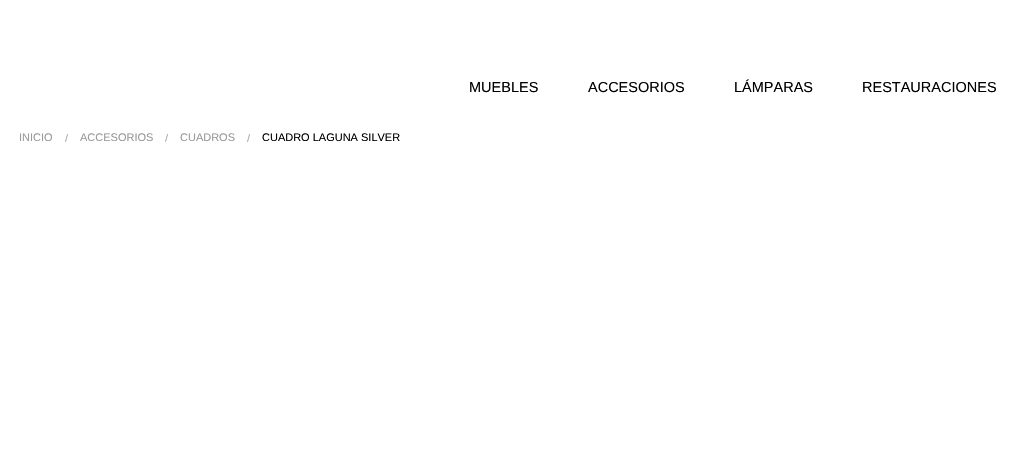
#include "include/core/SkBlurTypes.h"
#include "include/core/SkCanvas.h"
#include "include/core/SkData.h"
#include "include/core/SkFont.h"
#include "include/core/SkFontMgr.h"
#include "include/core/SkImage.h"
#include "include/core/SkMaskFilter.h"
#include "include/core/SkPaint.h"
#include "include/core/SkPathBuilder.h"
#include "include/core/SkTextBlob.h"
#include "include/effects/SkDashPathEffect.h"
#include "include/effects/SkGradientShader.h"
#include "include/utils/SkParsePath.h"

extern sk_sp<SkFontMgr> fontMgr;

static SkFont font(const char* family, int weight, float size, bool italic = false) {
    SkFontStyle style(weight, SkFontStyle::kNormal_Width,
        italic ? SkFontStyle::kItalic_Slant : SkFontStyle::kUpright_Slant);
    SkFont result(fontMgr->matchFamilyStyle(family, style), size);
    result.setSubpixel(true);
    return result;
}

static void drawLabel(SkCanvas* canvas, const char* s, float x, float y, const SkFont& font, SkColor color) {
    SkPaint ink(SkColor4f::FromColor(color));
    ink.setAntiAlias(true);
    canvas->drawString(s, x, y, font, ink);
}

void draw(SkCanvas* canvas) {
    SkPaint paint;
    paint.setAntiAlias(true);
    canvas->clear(0xFFFFFFFF);
    SkFont font1 = font("Liberation Sans", 400, 14.5f);
    drawLabel(canvas, "MUEBLES", 469, 92, font1, 0xFF000000);
    drawLabel(canvas, "ACCESORIOS", 588, 92, font1, 0xFF000000);
    drawLabel(canvas, "LÁMPARAS", 734, 92, font1, 0xFF000000);
    drawLabel(canvas, "RESTAURACIONES", 862, 92, font1, 0xFF000000);
    SkFont font2 = font("Liberation Sans", 400, 11);
    drawLabel(canvas, "INICIO", 19, 141, font2, 0xFF999999);
    drawLabel(canvas, "/", 65, 142, font2, 0xFFAAAAAA);
    drawLabel(canvas, "ACCESORIOS", 80, 141, font2, 0xFF999999);
    drawLabel(canvas, "/", 165, 142, font2, 0xFFAAAAAA);
    drawLabel(canvas, "CUADROS", 180, 141, font2, 0xFF999999);
    drawLabel(canvas, "/", 247, 142, font2, 0xFFAAAAAA);
    drawLabel(canvas, "CUADRO LAGUNA SILVER", 262, 141, font2, 0xFF000000);
}
